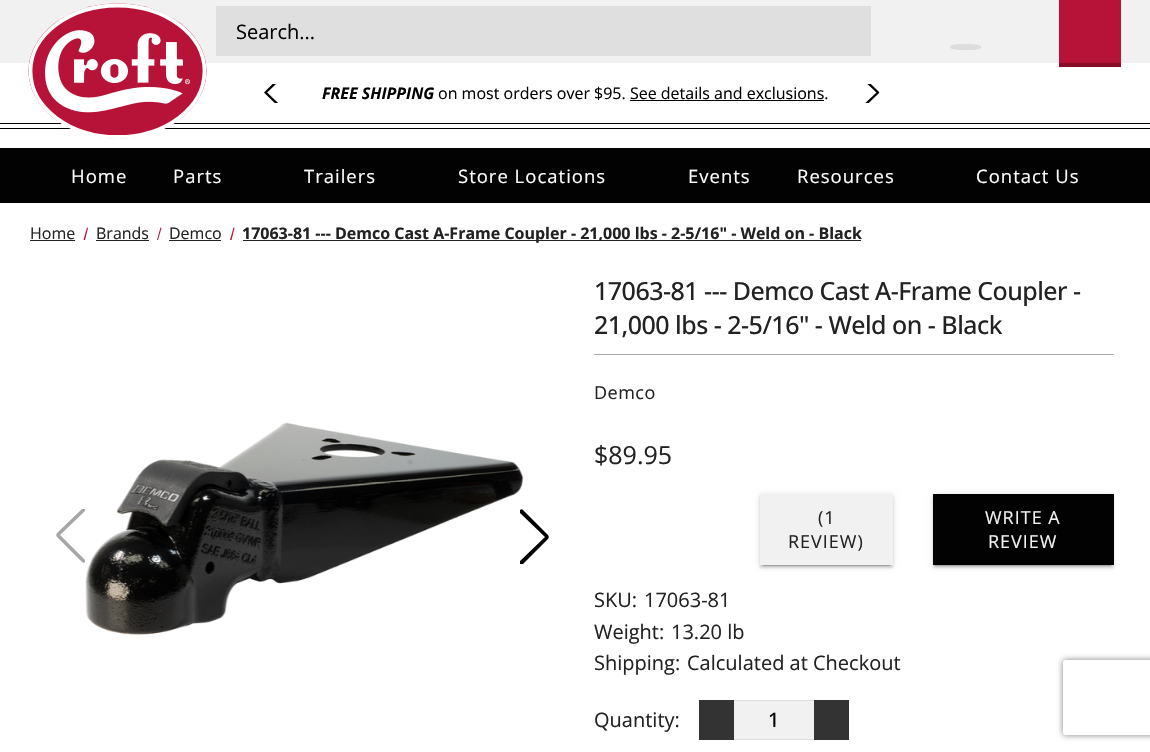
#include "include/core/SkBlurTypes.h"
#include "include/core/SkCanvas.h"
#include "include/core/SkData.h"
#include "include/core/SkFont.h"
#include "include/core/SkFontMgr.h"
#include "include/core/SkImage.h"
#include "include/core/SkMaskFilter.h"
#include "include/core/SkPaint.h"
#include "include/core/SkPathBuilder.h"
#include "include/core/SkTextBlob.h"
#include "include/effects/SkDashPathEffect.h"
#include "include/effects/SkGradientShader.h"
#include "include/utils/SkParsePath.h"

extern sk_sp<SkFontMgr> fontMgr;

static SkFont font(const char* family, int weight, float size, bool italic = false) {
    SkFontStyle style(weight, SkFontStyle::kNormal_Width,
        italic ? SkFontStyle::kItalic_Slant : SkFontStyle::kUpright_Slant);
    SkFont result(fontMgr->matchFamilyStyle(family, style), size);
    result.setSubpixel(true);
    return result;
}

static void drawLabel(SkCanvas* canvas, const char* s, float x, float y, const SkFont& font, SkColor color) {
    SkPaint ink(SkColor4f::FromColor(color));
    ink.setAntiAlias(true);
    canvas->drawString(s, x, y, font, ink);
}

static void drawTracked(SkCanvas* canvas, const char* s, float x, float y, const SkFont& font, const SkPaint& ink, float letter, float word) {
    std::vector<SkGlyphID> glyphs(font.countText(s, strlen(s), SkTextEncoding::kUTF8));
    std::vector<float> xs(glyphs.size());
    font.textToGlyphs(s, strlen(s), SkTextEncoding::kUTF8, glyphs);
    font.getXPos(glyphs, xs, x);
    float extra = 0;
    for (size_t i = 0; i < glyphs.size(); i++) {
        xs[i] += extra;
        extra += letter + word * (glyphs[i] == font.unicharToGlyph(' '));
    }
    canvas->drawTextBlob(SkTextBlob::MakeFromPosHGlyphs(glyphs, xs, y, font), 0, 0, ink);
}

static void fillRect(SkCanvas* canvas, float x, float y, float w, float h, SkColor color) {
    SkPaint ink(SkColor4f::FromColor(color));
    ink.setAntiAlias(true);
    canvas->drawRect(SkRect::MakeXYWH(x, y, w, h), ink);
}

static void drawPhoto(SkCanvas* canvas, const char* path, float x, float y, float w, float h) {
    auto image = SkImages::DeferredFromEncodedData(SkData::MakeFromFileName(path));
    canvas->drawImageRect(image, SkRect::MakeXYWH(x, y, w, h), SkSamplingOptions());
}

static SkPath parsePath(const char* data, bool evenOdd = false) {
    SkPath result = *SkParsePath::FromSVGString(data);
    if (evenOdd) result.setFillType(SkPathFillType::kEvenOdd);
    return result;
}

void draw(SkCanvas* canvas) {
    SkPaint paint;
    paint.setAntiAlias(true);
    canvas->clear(0xFFFFFFFF);
    fillRect(canvas, 0, 0, 1150, 63, 0xFFF1F1F1);
    fillRect(canvas, 0, 123, 1150, 1, 0xFF020202);
    fillRect(canvas, 0, 128, 1150, 1, 0xFF020202);
    paint.setColor(0xFFB71237);
    canvas->drawOval(SkRect::MakeXYWH(28.5f, 3.5f, 178, 135), paint);
    paint.setStroke(true);
    paint.setStrokeWidth(3.8f);
    paint.setColor(0xFFFFFFFF);
    canvas->drawPath(parsePath("M117.5 5.5C165.5 5.5 204.5 35 204.5 71C204.5 107.5 165.5 137 117.5 137C69.5 137 30.5 107.5 30.5 71C30.5 35 69.5 5.5 117.5 5.5Z"), paint);
    drawPhoto(canvas, "assets/img1.png", 45, 30, 145, 83);
    fillRect(canvas, 216, 6, 655, 50, 0xFFDFDFDF);
    SkFont font1 = font("Open Sans", 400, 20);
    drawLabel(canvas, "Search...", 236, 39, font1, 0xFF020202);
    fillRect(canvas, 1059, 0, 62, 63, 0xFFB71237);
    fillRect(canvas, 1059, 63, 62, 4, 0xFF850D28);
    paint.setStroke(false);
    paint.setColor(0xFFDDDDDD);
    canvas->drawOval(SkRect::MakeXYWH(950, 44, 31, 6), paint);
    paint.setStroke(true);
    paint.setStrokeWidth(1.2f);
    canvas->drawPath(parsePath("M965.5 44.5C974 44.5 980.5 45.5 980.5 47C980.5 48.5 974 49.5 965.5 49.5C957.5 49.5 950.5 48.5 950.5 47C950.5 45.5 957.5 44.5 965.5 44.5Z"), paint);
    canvas->save();
    canvas->clipRect(SkRect::MakeXYWH(264, 84, 29, 19));
    paint.setStrokeWidth(2.4f);
    paint.setStrokeCap(SkPaint::kRound_Cap);
    paint.setStrokeJoin(SkPaint::kRound_Join);
    paint.setColor(0xFF020202);
    canvas->drawPath(parsePath("M290.5 68.5L265.5 92.5L290.5 116.5"), paint);
    canvas->restore();
    SkFont font2 = font("Open Sans", 700, 16, true);
    drawLabel(canvas, "FREE SHIPPING", 322, 99, font2, 0xFF020202);
    SkFont font3 = font("Open Sans", 400, 16);
    drawLabel(canvas, "on most orders over $95. See details and exclusions.", 438, 99, font3, 0xFF020202);
    fillRect(canvas, 630, 100, 194, 1, 0xFF020202);
    canvas->save();
    canvas->clipRect(SkRect::MakeXYWH(851, 84, 29, 19));
    canvas->drawPath(parsePath("M853 68.5L878 92.5L853 116.5"), paint);
    canvas->restore();
    fillRect(canvas, 0, 148, 1150, 55, 0xFF020202);
    SkFont font4 = font("Open Sans", 400, 18.5f);
    paint.setStroke(false);
    paint.setColor(0xFFFFFFFF);
    drawTracked(canvas, "Home", 71, 183, font4, paint, 1, 0);
    drawTracked(canvas, "Parts", 173, 183, font4, paint, 1, 0);
    drawTracked(canvas, "Trailers", 304, 183, font4, paint, 1, 0);
    drawTracked(canvas, "Store Locations", 458, 183, font4, paint, 1, 0);
    drawTracked(canvas, "Events", 688, 183, font4, paint, 1, 0);
    drawTracked(canvas, "Resources", 797, 183, font4, paint, 1, 0);
    drawTracked(canvas, "Contact Us", 976, 183, font4, paint, 1, 0);
    drawLabel(canvas, "Home", 30, 239, font3, 0xFF222222);
    fillRect(canvas, 30, 240, 45, 1, 0xFF222222);
    paint.setColor(0xFFB71237);
    canvas->drawPath(parsePath("M87 227.5L88 228L85 240H83.5Z"), paint);
    drawLabel(canvas, "Brands", 96, 239, font3, 0xFF222222);
    fillRect(canvas, 96, 240, 53, 1, 0xFF222222);
    canvas->drawPath(parsePath("M160.5 227.5L161.5 228L158 240H157Z"), paint);
    drawLabel(canvas, "Demco", 169, 239, font3, 0xFF222222);
    fillRect(canvas, 169, 240, 52, 1, 0xFF222222);
    canvas->drawPath(parsePath("M233.5 227.5L234.5 228L231.5 240H230Z"), paint);
    fillRect(canvas, 243, 240, 618, 1, 0xFF222222);
    SkFont font5 = font("Open Sans", 700, 16);
    drawLabel(canvas, "17063-81 --- Demco Cast A-Frame Coupler - 21,000 lbs - 2-5/16\" - Weld on - Black", 242, 239, font5, 0xFF222222);
    canvas->save();
    canvas->clipRect(SkRect::MakeXYWH(54, 509, 34, 55));
    paint.setColor(0xFFA6A6A6);
    canvas->drawPath(parsePath("M85 509C85 509 85 510 85 511L60 535L85 560C85 560 85 562 85 562C84 563 83 563 82 562L57 537C56 536 56 535 57 533L82 509C83 508 84 508 85 509Z"), paint);
    canvas->restore();
    drawPhoto(canvas, "assets/img2.png", 85, 422, 439, 213);
    canvas->save();
    canvas->clipRect(SkRect::MakeXYWH(518, 509, 33, 55));
    paint.setColor(0xFF020202);
    canvas->drawPath(parsePath("M520 564C520 563 520 562 520 561L545 537L520 513C520 512 520 511 520 510C521 509 522 509 523 510L548 535C549 536 549 538 548 539L523 564C522 565 521 565 520 564Z"), paint);
    canvas->restore();
    fillRect(canvas, 594, 354, 520, 1, 0xFFAAAAAA);
    SkFont font6 = font("Open Sans", 500, 25);
    paint.setColor(0xFF222222);
    drawTracked(canvas, "17063-81 --- Demco Cast A-Frame Coupler -", 594, 300, font6, paint, -0.5f, 0);
    drawTracked(canvas, "21,000 lbs - 2-5/16\" - Weld on - Black", 594, 334, font6, paint, -0.5f, 0);
    SkFont font7 = font("Open Sans", 400, 18);
    drawTracked(canvas, "Demco", 594, 399, font7, paint, 0.5f, 0);
    SkFont font8 = font("Open Sans", 400, 25);
    drawLabel(canvas, "$89.95", 594, 464, font8, 0xFF222222);
    paint.setColor(0x1F000000);
    paint.setMaskFilter(SkMaskFilter::MakeBlur(kNormal_SkBlurStyle, 3));
    canvas->drawRect(SkRect::MakeXYWH(760, 495, 133, 71), paint);
    paint.setMaskFilter(nullptr);
    paint.setColor(0x33000000);
    paint.setMaskFilter(SkMaskFilter::MakeBlur(kNormal_SkBlurStyle, 0.5f));
    canvas->drawRect(SkRect::MakeXYWH(763, 500, 127, 66), paint);
    paint.setMaskFilter(nullptr);
    paint.setColor(0x24000000);
    paint.setMaskFilter(SkMaskFilter::MakeBlur(kNormal_SkBlurStyle, 1));
    canvas->drawRect(SkRect::MakeXYWH(760, 496, 133, 72), paint);
    paint.setMaskFilter(nullptr);
    fillRect(canvas, 760, 494, 133, 71, 0xFFF1F1F1);
    paint.setColor(0xFF222222);
    drawTracked(canvas, "(1", 818, 524, font7, paint, 1, 0);
    drawTracked(canvas, "REVIEW)", 788, 548, font7, paint, 1, 0);
    canvas->save();
    canvas->clipRect(SkRect::MakeXYWH(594, 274, 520, 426));
    paint.setColor(0x1F000000);
    paint.setMaskFilter(SkMaskFilter::MakeBlur(kNormal_SkBlurStyle, 3));
    canvas->drawRect(SkRect::MakeXYWH(933, 495, 181, 71), paint);
    paint.setMaskFilter(nullptr);
    canvas->restore();
    paint.setColor(0x33000000);
    paint.setMaskFilter(SkMaskFilter::MakeBlur(kNormal_SkBlurStyle, 0.5f));
    canvas->drawRect(SkRect::MakeXYWH(935, 500, 176, 66), paint);
    paint.setMaskFilter(nullptr);
    paint.setColor(0x24000000);
    paint.setMaskFilter(SkMaskFilter::MakeBlur(kNormal_SkBlurStyle, 1));
    canvas->drawRect(SkRect::MakeXYWH(933, 496, 181, 72), paint);
    paint.setMaskFilter(nullptr);
    fillRect(canvas, 933, 494, 181, 71, 0xFF020202);
    paint.setColor(0xFFF1F1F1);
    drawTracked(canvas, "WRITE A", 985, 524, font7, paint, 1, 0);
    drawTracked(canvas, "REVIEW", 988, 548, font7, paint, 1, 0);
    drawLabel(canvas, "SKU:", 594, 607, font1, 0xFF222222);
    drawLabel(canvas, "17063-81", 644, 607, font1, 0xFF222222);
    drawLabel(canvas, "Weight:", 594, 639, font1, 0xFF222222);
    drawLabel(canvas, "13.20 lb", 671, 639, font1, 0xFF222222);
    drawLabel(canvas, "Shipping:", 594, 670, font1, 0xFF222222);
    drawLabel(canvas, "Calculated at Checkout", 687, 670, font1, 0xFF222222);
    drawLabel(canvas, "Quantity:", 594, 727, font1, 0xFF222222);
    fillRect(canvas, 699, 700, 35, 40, 0xFF333333);
    fillRect(canvas, 734, 701, 80, 38, 0xFFF1F1F1);
    fillRect(canvas, 734, 700, 80, 1, 0xFFDDDDDD);
    fillRect(canvas, 734, 739, 80, 1, 0xFFDDDDDD);
    SkFont font9 = font("Open Sans", 500, 20);
    drawLabel(canvas, "1", 768, 727, font9, 0xFF020202);
    fillRect(canvas, 814, 700, 35, 40, 0xFF333333);
    canvas->save();
    canvas->clipPath(parsePath("M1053 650H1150V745H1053ZM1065.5 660H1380.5C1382 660 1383 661 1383 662.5V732.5C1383 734 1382 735 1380.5 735H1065.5C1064 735 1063 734 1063 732.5V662.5C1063 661 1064 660 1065.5 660Z", true), true);
    paint.setColor(0xFF808080);
    paint.setMaskFilter(SkMaskFilter::MakeBlur(kNormal_SkBlurStyle, 3));
    canvas->drawRoundRect(SkRect::MakeXYWH(1063, 660, 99, 75), 2.5f, 2.5f, paint);
    paint.setMaskFilter(nullptr);
    canvas->restore();
}
